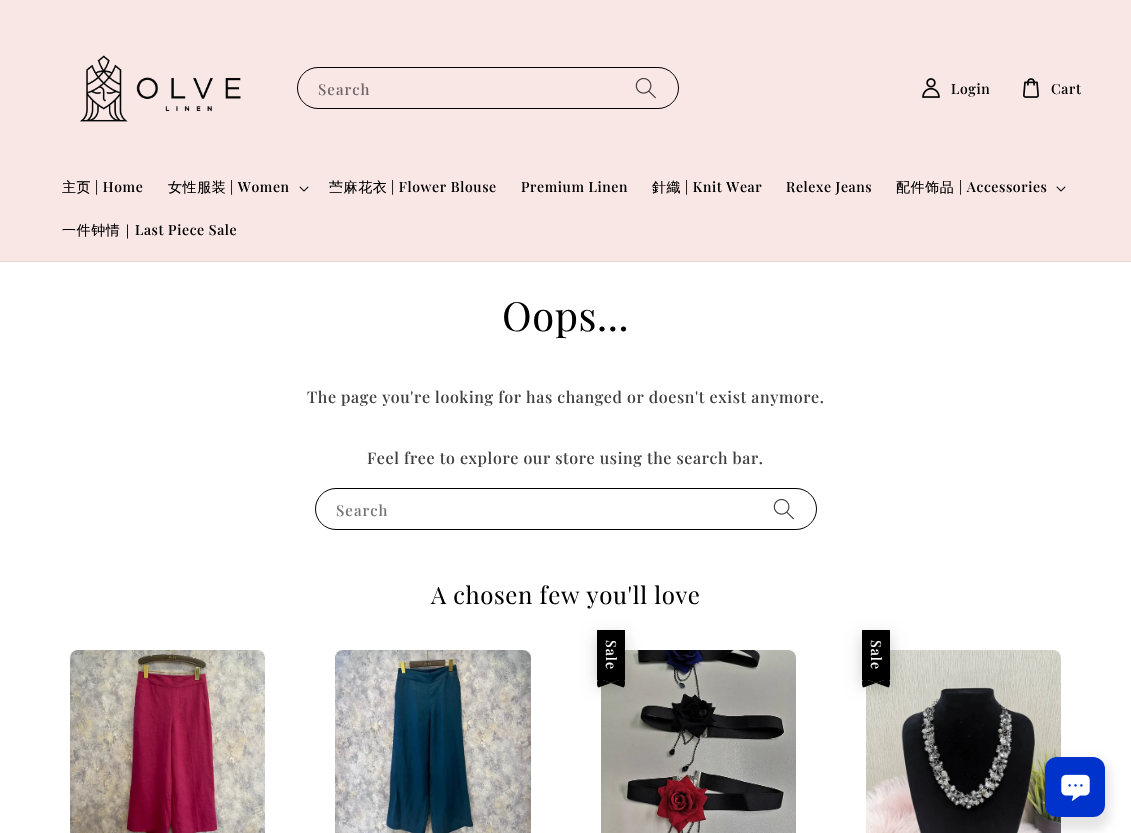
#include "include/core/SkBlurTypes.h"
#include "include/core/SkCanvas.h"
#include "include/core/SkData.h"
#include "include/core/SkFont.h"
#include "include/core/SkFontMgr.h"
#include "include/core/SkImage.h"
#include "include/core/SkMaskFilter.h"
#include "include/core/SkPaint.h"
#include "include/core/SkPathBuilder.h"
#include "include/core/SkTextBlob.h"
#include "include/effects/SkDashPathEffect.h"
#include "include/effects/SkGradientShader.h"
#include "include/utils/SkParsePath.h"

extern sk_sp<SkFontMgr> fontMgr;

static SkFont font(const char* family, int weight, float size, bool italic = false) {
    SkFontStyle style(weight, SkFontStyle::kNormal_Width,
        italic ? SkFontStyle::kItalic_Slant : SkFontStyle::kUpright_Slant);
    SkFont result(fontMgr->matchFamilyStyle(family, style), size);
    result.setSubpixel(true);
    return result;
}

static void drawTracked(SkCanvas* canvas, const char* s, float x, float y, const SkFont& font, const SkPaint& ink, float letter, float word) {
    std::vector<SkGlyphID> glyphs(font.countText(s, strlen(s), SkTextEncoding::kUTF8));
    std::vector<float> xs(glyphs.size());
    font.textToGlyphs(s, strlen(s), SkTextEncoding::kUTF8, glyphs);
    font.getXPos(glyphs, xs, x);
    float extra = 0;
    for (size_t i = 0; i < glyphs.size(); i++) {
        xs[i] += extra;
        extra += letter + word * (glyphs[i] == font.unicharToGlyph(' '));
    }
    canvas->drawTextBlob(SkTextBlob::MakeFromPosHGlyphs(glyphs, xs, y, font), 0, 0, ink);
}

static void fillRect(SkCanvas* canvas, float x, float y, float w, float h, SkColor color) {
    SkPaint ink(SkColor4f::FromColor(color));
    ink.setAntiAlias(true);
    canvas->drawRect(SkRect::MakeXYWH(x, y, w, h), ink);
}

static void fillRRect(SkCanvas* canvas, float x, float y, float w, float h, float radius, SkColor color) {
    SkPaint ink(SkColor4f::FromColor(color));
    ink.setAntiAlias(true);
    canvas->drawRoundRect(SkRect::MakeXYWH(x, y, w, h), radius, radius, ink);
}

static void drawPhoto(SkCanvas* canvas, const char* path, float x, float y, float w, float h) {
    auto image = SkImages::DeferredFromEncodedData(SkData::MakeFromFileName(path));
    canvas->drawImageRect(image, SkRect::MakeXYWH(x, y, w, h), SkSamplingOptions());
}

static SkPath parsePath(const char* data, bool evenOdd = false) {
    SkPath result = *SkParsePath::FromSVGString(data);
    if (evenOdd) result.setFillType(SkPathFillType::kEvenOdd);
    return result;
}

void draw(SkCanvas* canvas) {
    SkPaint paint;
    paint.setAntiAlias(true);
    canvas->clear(0xFFFFFFFF);
    fillRect(canvas, 0, 0, 1131, 261, 0xFFF9E7E6);
    fillRect(canvas, 0, 261, 1131, 1, 0xFFE5D5D4);
    drawPhoto(canvas, "assets/img1.png", 79, 55, 162, 67);
    paint.setStroke(true);
    paint.setStrokeWidth(1);
    paint.setColor(0xFF000000);
    canvas->drawRoundRect(SkRect::MakeXYWH(297.5f, 67.5f, 381, 41), 20.5f, 20.5f, paint);
    SkFont font1 = font("Playfair Display", 500, 15);
    paint.setStroke(false);
    paint.setColor(0xFF706868);
    drawTracked(canvas, "Search", 318, 95, font1, paint, 1, 0);
    drawPhoto(canvas, "assets/img2.png", 635, 78, 21, 21);
    drawPhoto(canvas, "assets/img3.png", 922, 78, 18, 20);
    SkFont font2 = font("Playfair Display", 500, 14);
    paint.setColor(0xFF000000);
    drawTracked(canvas, "Login", 951, 94, font2, paint, 0.6f, 0);
    drawPhoto(canvas, "assets/img4.png", 1023, 78, 16, 20);
    drawTracked(canvas, "Cart", 1051, 94, font2, paint, 0.6f, 0);
    SkFont font3 = font("WenQuanYi Zen Hei", 500, 14);
    drawTracked(canvas, "主页", 62, 192, font3, paint, 0.6f, 0);
    drawTracked(canvas, "| Home", 95, 192, font2, paint, 0.6f, 0);
    drawTracked(canvas, "女性服装", 168, 192, font3, paint, 0.6f, 0);
    drawTracked(canvas, "| Women", 230, 192, font2, paint, 0.6f, 0);
    drawPhoto(canvas, "assets/img5.png", 299, 186, 10, 6);
    drawTracked(canvas, "苎麻花衣", 329, 192, font3, paint, 0.6f, 0);
    drawTracked(canvas, "| Flower Blouse", 391, 192, font2, paint, 0.6f, 0);
    drawTracked(canvas, "Premium Linen", 521, 192, font2, paint, 0.6f, 0);
    drawTracked(canvas, "針織", 652, 192, font3, paint, 0.6f, 0);
    drawTracked(canvas, "| Knit Wear", 685, 192, font2, paint, 0.6f, 0);
    drawTracked(canvas, "Relexe Jeans", 786, 192, font2, paint, 0.6f, 0);
    drawTracked(canvas, "配件饰品", 896, 192, font3, paint, 0.6f, 0);
    drawTracked(canvas, "| Accessories", 959, 192, font2, paint, 0.6f, 0);
    drawPhoto(canvas, "assets/img5.png", 1056, 186, 10, 6);
    drawTracked(canvas, "一件钟情｜", 62, 235, font3, paint, 0.6f, 0);
    drawTracked(canvas, "Last Piece Sale", 135, 235, font2, paint, 0.6f, 0);
    SkFont font4 = font("Playfair Display", 400, 40);
    drawTracked(canvas, "Oops...", 502, 331, font4, paint, 0.6f, 0);
    SkFont font5 = font("Playfair Display", 500, 16);
    paint.setColor(0xFF404040);
    drawTracked(canvas, "The page you're looking for has changed or doesn't exist anymore.", 307, 403, font5, paint, 0.6f, 0);
    drawTracked(canvas, "Feel free to explore our store using the search bar.", 367, 464, font5, paint, 0.6f, 0);
    paint.setStroke(true);
    paint.setColor(0xFF000000);
    canvas->drawRoundRect(SkRect::MakeXYWH(315.5f, 488.5f, 501, 41), 20.5f, 20.5f, paint);
    paint.setStroke(false);
    paint.setColor(0xFF737373);
    drawTracked(canvas, "Search", 336, 516, font1, paint, 1, 0);
    drawPhoto(canvas, "assets/img6.png", 773, 499, 21, 21);
    SkFont font6 = font("Playfair Display", 400, 24);
    paint.setColor(0xFF000000);
    drawTracked(canvas, "A chosen few you'll love", 431, 604, font6, paint, 0.6f, 0);
    drawPhoto(canvas, "assets/img7.png", 70, 650, 195, 183);
    drawPhoto(canvas, "assets/img8.png", 335, 650, 196, 183);
    drawPhoto(canvas, "assets/img9.png", 601, 650, 195, 183);
    paint.setColor(0x33000000);
    paint.setMaskFilter(SkMaskFilter::MakeBlur(kNormal_SkBlurStyle, 7.5f));
    canvas->drawRect(SkRect::MakeXYWH(597, 636, 28, 50), paint);
    paint.setMaskFilter(nullptr);
    fillRect(canvas, 597, 630, 28, 50, 0xFF000000);
    paint.setColor(0xFFFFFFFF);
    canvas->save();
    canvas->rotate(90, 606, 640);
    drawTracked(canvas, "Sale", 606, 640, font2, paint, 1, 0);
    canvas->restore();
    paint.setColor(0xFF000000);
    canvas->drawPath(parsePath("M600 678L598.5 678.5L611 683L623.5 678.5L622.5 678Z"), paint);
    canvas->drawPath(parsePath("M611 683L623.5 678.5C625.5 680 625.5 686 623.5 687.5ZM611 683L598.5 687.5C596.5 686.5 596.5 680 598.5 678.5Z"), paint);
    drawPhoto(canvas, "assets/img10.png", 866, 650, 195, 183);
    paint.setColor(0x33000000);
    paint.setMaskFilter(SkMaskFilter::MakeBlur(kNormal_SkBlurStyle, 7.5f));
    canvas->drawRect(SkRect::MakeXYWH(862, 636, 28, 50), paint);
    paint.setMaskFilter(nullptr);
    fillRect(canvas, 862, 630, 28, 50, 0xFF000000);
    paint.setColor(0xFFFFFFFF);
    canvas->save();
    canvas->rotate(90, 871, 640);
    drawTracked(canvas, "Sale", 871, 640, font2, paint, 1, 0);
    canvas->restore();
    paint.setColor(0xFF000000);
    canvas->drawPath(parsePath("M865 678L863.5 678.5L876 683L888.5 678.5L887.5 678Z"), paint);
    canvas->drawPath(parsePath("M876 683L888.5 678.5C890.5 680 890.5 686 888.5 687.5ZM876 683L863.5 687.5C861.5 686.5 861.5 680 863.5 678.5Z"), paint);
    paint.setColor(0x1A000000);
    paint.setMaskFilter(SkMaskFilter::MakeBlur(kNormal_SkBlurStyle, 5));
    canvas->drawRoundRect(SkRect::MakeXYWH(1040, 760, 70, 70), 17, 17, paint);
    paint.setMaskFilter(nullptr);
    fillRRect(canvas, 1045, 757, 60, 60, 12, 0xFF0033CC);
    drawPhoto(canvas, "assets/img11.png", 1061, 774, 29, 27);
}
